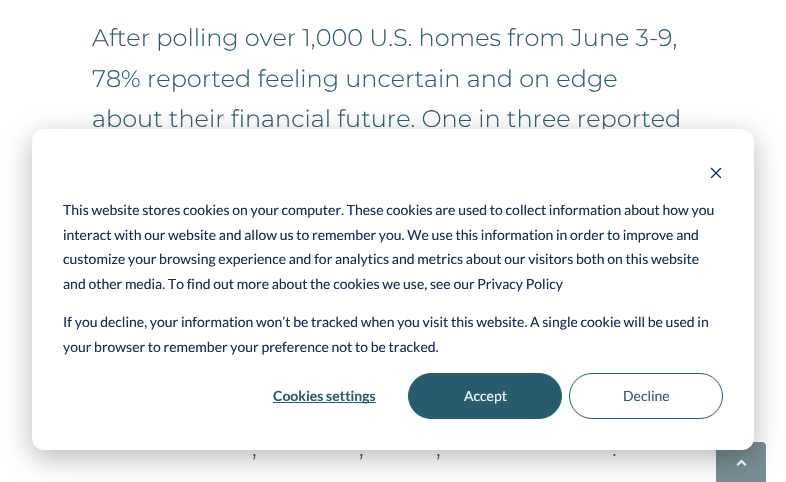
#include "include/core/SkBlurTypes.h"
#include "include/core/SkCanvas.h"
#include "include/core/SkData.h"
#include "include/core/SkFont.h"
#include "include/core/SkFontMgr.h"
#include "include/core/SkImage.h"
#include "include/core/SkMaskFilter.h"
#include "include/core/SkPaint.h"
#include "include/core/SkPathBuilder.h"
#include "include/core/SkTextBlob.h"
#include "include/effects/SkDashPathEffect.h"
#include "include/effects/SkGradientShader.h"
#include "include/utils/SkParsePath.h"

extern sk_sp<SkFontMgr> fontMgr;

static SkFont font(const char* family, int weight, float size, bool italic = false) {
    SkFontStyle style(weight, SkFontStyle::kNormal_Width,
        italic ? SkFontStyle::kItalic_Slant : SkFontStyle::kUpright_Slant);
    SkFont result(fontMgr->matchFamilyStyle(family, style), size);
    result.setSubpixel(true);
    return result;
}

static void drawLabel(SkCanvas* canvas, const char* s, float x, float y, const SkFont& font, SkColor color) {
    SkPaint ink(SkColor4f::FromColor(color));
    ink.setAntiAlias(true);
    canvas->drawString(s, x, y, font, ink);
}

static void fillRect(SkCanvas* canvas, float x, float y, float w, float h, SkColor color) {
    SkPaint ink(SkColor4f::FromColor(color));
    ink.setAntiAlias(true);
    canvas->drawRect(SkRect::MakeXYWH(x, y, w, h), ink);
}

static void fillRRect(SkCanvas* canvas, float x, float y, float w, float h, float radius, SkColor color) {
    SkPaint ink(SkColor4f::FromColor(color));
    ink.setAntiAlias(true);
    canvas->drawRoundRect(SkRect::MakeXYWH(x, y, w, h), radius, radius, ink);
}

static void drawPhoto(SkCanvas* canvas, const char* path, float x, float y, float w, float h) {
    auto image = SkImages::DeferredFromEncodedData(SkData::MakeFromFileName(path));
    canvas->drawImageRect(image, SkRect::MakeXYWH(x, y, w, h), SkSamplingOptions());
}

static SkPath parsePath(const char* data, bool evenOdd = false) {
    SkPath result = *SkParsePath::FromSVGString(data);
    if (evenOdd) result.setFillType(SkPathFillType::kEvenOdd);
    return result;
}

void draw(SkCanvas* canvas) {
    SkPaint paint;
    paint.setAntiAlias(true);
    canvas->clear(0xFFFFFFFF);
    SkFont font1 = font("Montserrat", 300, 24);
    drawLabel(canvas, "After polling over 1,000 U.S. homes from June 3-9,", 92, 46, font1, 0xFF2B5C6E);
    drawLabel(canvas, "78% reported feeling uncertain and on edge", 92, 87, font1, 0xFF2B5C6E);
    drawLabel(canvas, "about their financial future. One in three reported", 92, 127, font1, 0xFF2B5C6E);
    drawLabel(canvas, ",", 252, 456, font1, 0xFF2B5C6E);
    drawLabel(canvas, ",", 359, 456, font1, 0xFF2B5C6E);
    drawLabel(canvas, ",", 436, 456, font1, 0xFF2B5C6E);
    drawLabel(canvas, ".", 612, 456, font1, 0xFF2B5C6E);
    paint.setColor(0xFF809DA8);
    canvas->drawPath(parsePath("M720 442H762C764 442 766 444 766 446V482H716V446C716 444 718 442 720 442Z"), paint);
    paint.setColor(0x4D666666);
    canvas->drawPath(parsePath("M720 442H762C764 442 766 444 766 446V482H716V446C716 444 718 442 720 442Z"), paint);
    drawPhoto(canvas, "assets/img2.png", 736, 459, 11, 7);
    paint.setColor(0x47000000);
    paint.setMaskFilter(SkMaskFilter::MakeBlur(kNormal_SkBlurStyle, 14));
    canvas->drawRoundRect(SkRect::MakeXYWH(32, 137, 722, 321), 12, 12, paint);
    paint.setMaskFilter(nullptr);
    fillRRect(canvas, 32, 129, 722, 321, 12, 0xFFFFFFFF);
    drawPhoto(canvas, "assets/img1.png", 710, 167, 12, 12);
    SkFont font2 = font("Lato", 400, 14);
    drawLabel(canvas, "This website stores cookies on your computer. These cookies are used to collect information about how you", 63, 215, font2, 0xFF15295A);
    drawLabel(canvas, "interact with our website and allow us to remember you. We use this information in order to improve and", 63, 240, font2, 0xFF15295A);
    drawLabel(canvas, "customize your browsing experience and for analytics and metrics about our visitors both on this website", 63, 264, font2, 0xFF15295A);
    drawLabel(canvas, "and other media. To find out more about the cookies we use, see our Privacy Policy", 63, 289, font2, 0xFF15295A);
    drawLabel(canvas, "If you decline, your information won’t be tracked when you visit this website. A single cookie will be used in", 63, 327, font2, 0xFF15295A);
    drawLabel(canvas, "your browser to remember your preference not to be tracked.", 63, 352, font2, 0xFF15295A);
    fillRect(canvas, 273, 402, 103, 1, 0xFF265C6E);
    SkFont font3 = font("Lato", 700, 14);
    drawLabel(canvas, "Cookies settings", 273, 401, font3, 0xFF2B5C6E);
    paint.setColor(0xFF265C6E);
    canvas->drawRoundRect(SkRect::MakeXYWH(408.5f, 373.5f, 153, 45), 22.5f, 22.5f, paint);
    paint.setStroke(true);
    paint.setStrokeWidth(1);
    canvas->drawRoundRect(SkRect::MakeXYWH(408.5f, 373.5f, 153, 45), 22.5f, 22.5f, paint);
    drawLabel(canvas, "Accept", 464, 401, font2, 0xFFFFFFFF);
    canvas->drawRoundRect(SkRect::MakeXYWH(569.5f, 373.5f, 153, 45), 22.5f, 22.5f, paint);
    drawLabel(canvas, "Decline", 623, 401, font2, 0xFF2B5C6E);
}
